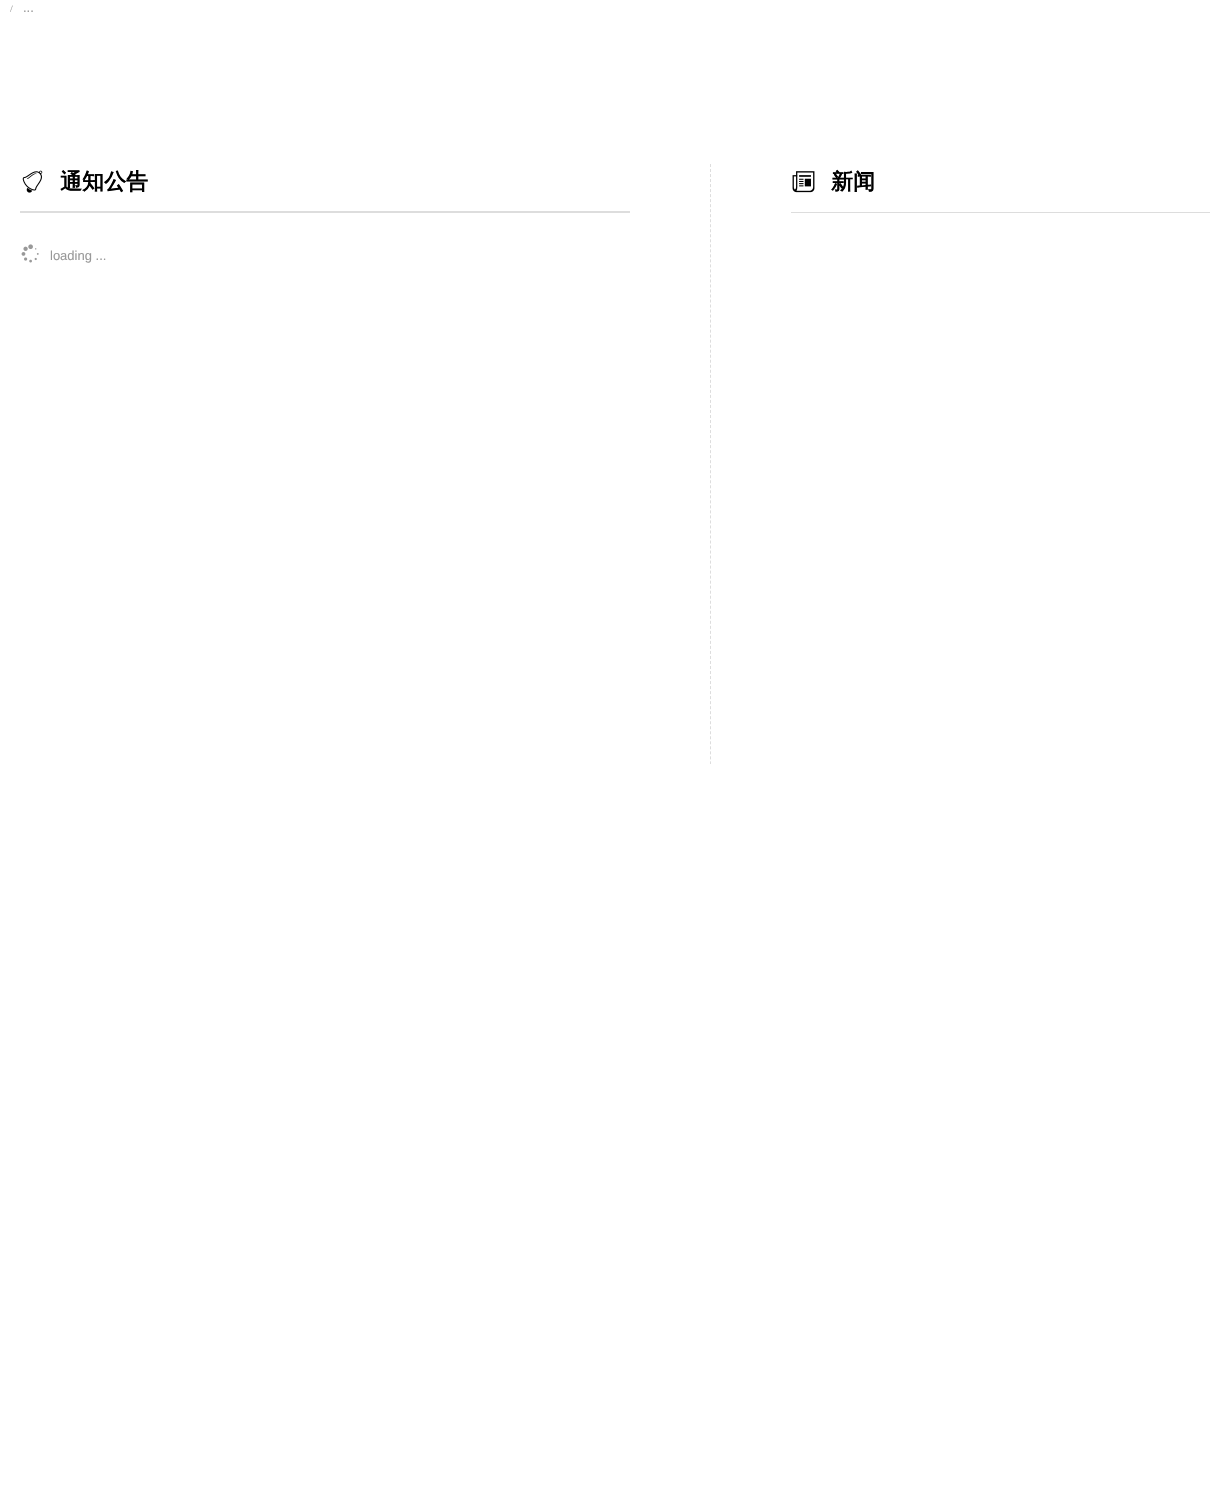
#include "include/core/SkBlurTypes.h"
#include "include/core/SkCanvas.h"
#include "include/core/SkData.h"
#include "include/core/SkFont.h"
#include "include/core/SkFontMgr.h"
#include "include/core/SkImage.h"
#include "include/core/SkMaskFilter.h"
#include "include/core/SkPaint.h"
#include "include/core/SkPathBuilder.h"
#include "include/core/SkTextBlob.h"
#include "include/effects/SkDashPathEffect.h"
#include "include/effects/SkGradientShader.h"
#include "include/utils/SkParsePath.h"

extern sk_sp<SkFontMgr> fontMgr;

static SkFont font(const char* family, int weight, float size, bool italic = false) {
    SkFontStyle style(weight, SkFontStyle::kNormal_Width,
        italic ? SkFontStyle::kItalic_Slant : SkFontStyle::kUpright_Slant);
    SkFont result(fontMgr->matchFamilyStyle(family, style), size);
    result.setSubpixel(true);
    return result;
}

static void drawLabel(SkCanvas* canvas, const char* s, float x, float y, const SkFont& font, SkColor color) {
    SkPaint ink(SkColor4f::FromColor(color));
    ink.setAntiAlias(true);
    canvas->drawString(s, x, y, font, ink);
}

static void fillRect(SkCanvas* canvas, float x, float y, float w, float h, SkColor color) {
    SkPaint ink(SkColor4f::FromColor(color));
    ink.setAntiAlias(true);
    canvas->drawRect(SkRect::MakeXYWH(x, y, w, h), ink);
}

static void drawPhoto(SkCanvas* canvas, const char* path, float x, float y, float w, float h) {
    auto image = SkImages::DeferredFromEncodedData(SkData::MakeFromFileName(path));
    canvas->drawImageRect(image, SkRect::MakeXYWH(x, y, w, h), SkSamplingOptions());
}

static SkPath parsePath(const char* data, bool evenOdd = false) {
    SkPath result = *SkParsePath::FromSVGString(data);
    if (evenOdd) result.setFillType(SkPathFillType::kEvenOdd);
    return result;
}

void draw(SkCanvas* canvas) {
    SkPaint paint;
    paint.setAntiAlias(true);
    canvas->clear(0xFFFFFFFF);
    SkFont font1 = font("Liberation Serif", 400, 10);
    drawLabel(canvas, "/", 10, 12, font1, 0xFF999999);
    SkFont font2 = font("Liberation Sans", 400, 13);
    drawLabel(canvas, "...", 23, 12, font2, 0xFF999999);
    drawPhoto(canvas, "assets/img1.png", 22, 170, 21, 23);
    SkFont font3 = font("WenQuanYi Zen Hei", 700, 22);
    drawLabel(canvas, "通知公告", 60, 189, font3, 0xFF000000);
    fillRect(canvas, 20, 211, 610, 2, 0xFFDDDDDD);
    drawPhoto(canvas, "assets/img2.png", 21, 244, 18, 19);
    drawLabel(canvas, "loading ...", 50, 260, font2, 0xFF999999);
    paint.setStroke(true);
    paint.setStrokeWidth(1);
    paint.setColor(0xFFDDDDDD);
    paint.setPathEffect(SkDashPathEffect::Make({{3, 2.02f}}, 0));
    canvas->drawPath(parsePath("M710.5 164V764"), paint);
    paint.setPathEffect(nullptr);
    drawPhoto(canvas, "assets/img3.png", 792, 171, 23, 22);
    drawLabel(canvas, "新闻", 831, 189, font3, 0xFF000000);
    fillRect(canvas, 791, 212, 419, 1, 0xFFDDDDDD);
}
